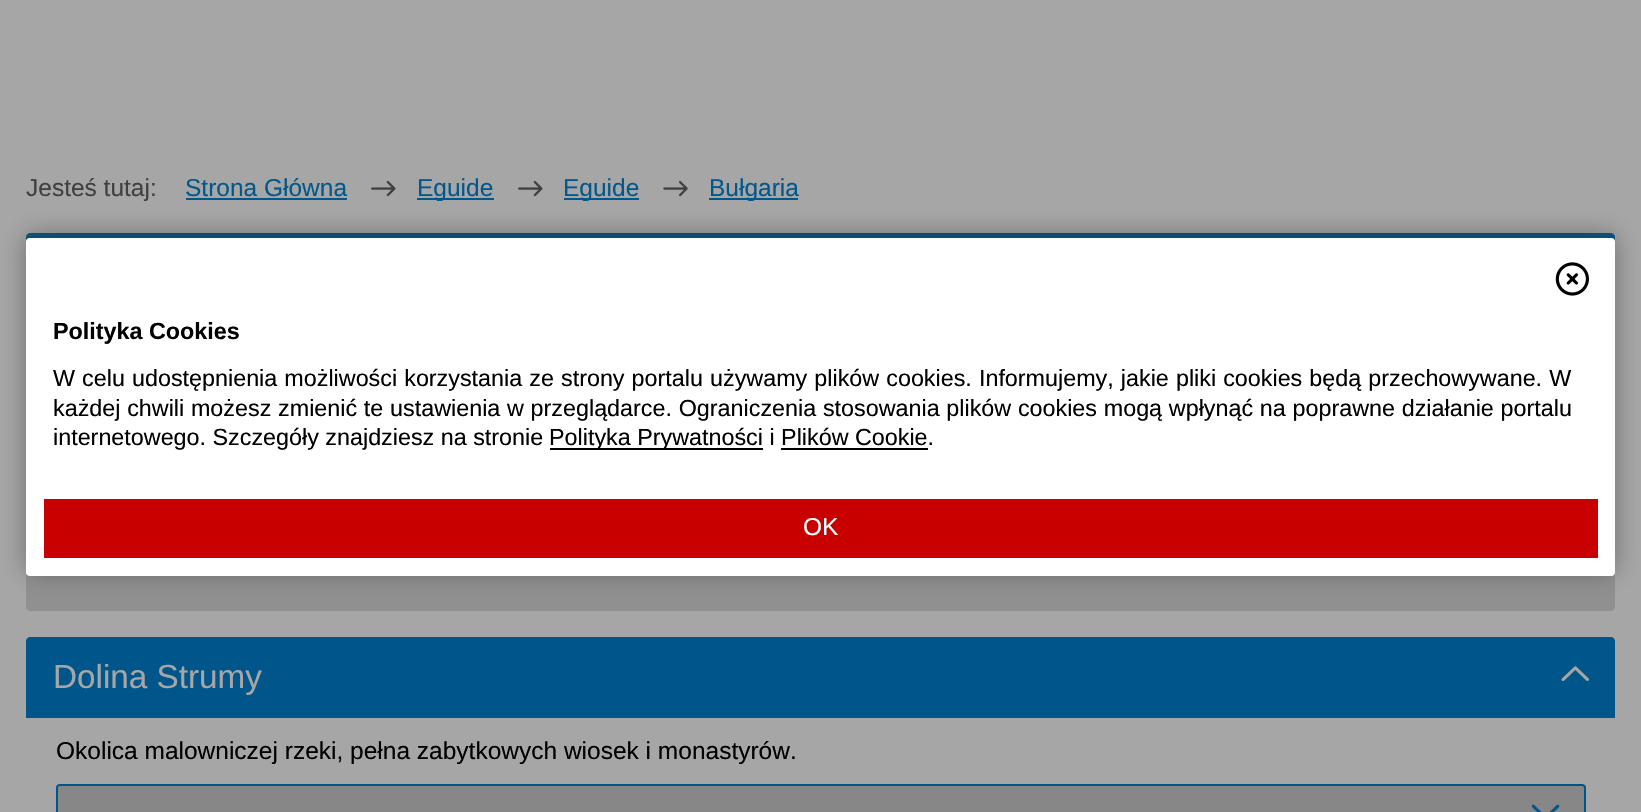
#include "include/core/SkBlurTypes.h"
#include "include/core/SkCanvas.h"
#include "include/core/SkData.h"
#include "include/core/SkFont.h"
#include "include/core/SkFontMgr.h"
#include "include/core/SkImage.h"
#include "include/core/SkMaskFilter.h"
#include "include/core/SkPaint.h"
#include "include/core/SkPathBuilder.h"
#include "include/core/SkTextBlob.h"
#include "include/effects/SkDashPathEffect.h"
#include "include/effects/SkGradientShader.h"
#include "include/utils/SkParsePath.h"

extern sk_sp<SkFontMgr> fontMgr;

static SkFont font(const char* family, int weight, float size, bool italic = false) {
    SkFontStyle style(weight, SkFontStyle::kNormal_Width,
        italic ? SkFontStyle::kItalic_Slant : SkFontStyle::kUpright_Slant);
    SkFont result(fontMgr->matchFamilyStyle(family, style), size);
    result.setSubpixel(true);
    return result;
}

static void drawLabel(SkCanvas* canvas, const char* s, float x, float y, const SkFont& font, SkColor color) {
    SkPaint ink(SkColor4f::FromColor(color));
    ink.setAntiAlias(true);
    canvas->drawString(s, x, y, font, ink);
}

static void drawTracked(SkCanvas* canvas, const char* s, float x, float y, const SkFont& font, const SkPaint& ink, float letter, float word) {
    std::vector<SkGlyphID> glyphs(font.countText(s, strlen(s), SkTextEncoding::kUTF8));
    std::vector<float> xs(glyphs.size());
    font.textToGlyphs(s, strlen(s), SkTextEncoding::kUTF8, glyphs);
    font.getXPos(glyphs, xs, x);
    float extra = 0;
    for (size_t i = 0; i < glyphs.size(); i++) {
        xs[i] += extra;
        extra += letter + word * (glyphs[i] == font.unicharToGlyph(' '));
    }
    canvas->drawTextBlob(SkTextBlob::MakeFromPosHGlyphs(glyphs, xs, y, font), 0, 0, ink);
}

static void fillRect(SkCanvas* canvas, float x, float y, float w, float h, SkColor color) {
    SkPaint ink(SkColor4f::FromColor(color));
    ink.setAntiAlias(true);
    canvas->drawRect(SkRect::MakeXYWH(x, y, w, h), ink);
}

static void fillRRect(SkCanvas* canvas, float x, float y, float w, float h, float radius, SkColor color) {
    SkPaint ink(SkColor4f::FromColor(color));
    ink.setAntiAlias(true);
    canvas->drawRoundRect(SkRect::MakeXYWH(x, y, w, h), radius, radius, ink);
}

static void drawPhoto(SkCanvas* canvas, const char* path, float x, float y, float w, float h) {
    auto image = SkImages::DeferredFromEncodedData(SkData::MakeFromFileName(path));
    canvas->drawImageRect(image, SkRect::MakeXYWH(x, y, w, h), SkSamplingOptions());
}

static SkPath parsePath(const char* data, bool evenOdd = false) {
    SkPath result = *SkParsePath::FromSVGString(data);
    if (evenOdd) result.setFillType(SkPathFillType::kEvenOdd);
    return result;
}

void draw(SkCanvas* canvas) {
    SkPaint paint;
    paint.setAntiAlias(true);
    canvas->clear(0xFFA6A6A6);
    SkFont font1 = font("Liberation Sans", 400, 24.5f);
    drawLabel(canvas, "Jesteś tutaj:", 26, 196, font1, 0xFF404040);
    drawLabel(canvas, "Strona Główna", 185, 196, font1, 0xFF01588C);
    fillRect(canvas, 186, 198, 161, 2, 0xFF01588C);
    drawPhoto(canvas, "assets/img1.png", 371, 180, 25, 17);
    fillRect(canvas, 417, 198, 77, 2, 0xFF01588C);
    drawLabel(canvas, "Eguide", 417, 196, font1, 0xFF01588C);
    drawPhoto(canvas, "assets/img1.png", 518, 180, 25, 17);
    fillRect(canvas, 564, 198, 75, 2, 0xFF01588C);
    drawLabel(canvas, "Eguide", 563, 196, font1, 0xFF01588C);
    drawPhoto(canvas, "assets/img2.png", 663, 180, 25, 17);
    fillRect(canvas, 709, 198, 89, 2, 0xFF01588C);
    drawLabel(canvas, "Bułgaria", 709, 196, font1, 0xFF01588C);
    paint.setColor(0xFF00568B);
    canvas->drawPath(parsePath("M30 233H1611C1613 233 1615 235 1615 237V313H26V237C26 235 28 233 30 233Z"), paint);
    {
        const SkColor colors[] = {0xFF909090, 0xFFA6A6A6};
        const float stops[] = {0.12f, 0.96f};
        const SkPoint ends[] = {{821, 611}, {821, 313}};
        paint.setShader(SkGradientShader::MakeLinear(ends, colors, stops, 2, SkTileMode::kClamp));
        paint.setAlpha(255);
    }
    canvas->drawPath(parsePath("M26 313H1615V607C1615 609 1613 611 1611 611H30C28 611 26 609 26 607Z"), paint);
    paint.setShader(nullptr);
    paint.setColor(0x80323232);
    paint.setMaskFilter(SkMaskFilter::MakeBlur(kNormal_SkBlurStyle, 13));
    canvas->drawRoundRect(SkRect::MakeXYWH(26, 235, 1589, 337), 4, 4, paint);
    paint.setMaskFilter(nullptr);
    fillRRect(canvas, 26, 238, 1589, 338, 4, 0xFFFFFFFF);
    drawPhoto(canvas, "assets/img3.png", 1555, 262, 34, 34);
    SkFont font2 = font("Liberation Sans", 700, 23.33f);
    drawLabel(canvas, "Polityka Cookies", 53, 339, font2, 0xFF000000);
    SkFont font3 = font("Liberation Sans", 400, 23.33f);
    paint.setColor(0xFF000000);
    drawTracked(canvas, "W celu udostępnienia możliwości korzystania ze strony portalu używamy plików cookies. Informujemy, jakie pliki cookies będą przechowywane. W", 53, 386, font3, paint, 0, 0.6f);
    drawTracked(canvas, "każdej chwili możesz zmienić te ustawienia w przeglądarce. Ograniczenia stosowania plików cookies mogą wpłynąć na poprawne działanie portalu", 53, 416, font3, paint, 0, 0.25f);
    drawLabel(canvas, "internetowego. Szczegóły znajdziesz na stronie", 53, 445, font3, 0xFF000000);
    fillRect(canvas, 550, 448, 213, 2, 0xFF000000);
    drawLabel(canvas, "Polityka Prywatności i Plików Cookie.", 549, 445, font3, 0xFF000000);
    fillRect(canvas, 781, 448, 147, 2, 0xFF000000);
    fillRect(canvas, 44, 499, 1554, 59, 0xFFC90000);
    drawLabel(canvas, "OK", 803, 535, font1, 0xFFFFFFFF);
    paint.setColor(0xFF00568B);
    canvas->drawPath(parsePath("M30 637H1611C1613 637 1615 639 1615 641V718H26V641C26 639 28 637 30 637Z"), paint);
    SkFont font4 = font("Liberation Sans", 400, 33.25f);
    drawLabel(canvas, "Dolina Strumy", 53, 688, font4, 0xFFA6A6A6);
    drawPhoto(canvas, "assets/img4.png", 1561, 666, 28, 16);
    drawLabel(canvas, "Okolica malowniczej rzeki, pełna zabytkowych wiosek i monastyrów.", 56, 759, font1, 0xFF000000);
    paint.setColor(0xFF878787);
    canvas->drawRoundRect(SkRect::MakeXYWH(57, 785, 1528, 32), 3, 3, paint);
    paint.setStroke(true);
    paint.setStrokeWidth(2);
    paint.setColor(0xFF00568B);
    canvas->drawRoundRect(SkRect::MakeXYWH(57, 785, 1528, 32), 3, 3, paint);
    drawPhoto(canvas, "assets/img5.png", 1531, 804, 29, 8);
}
